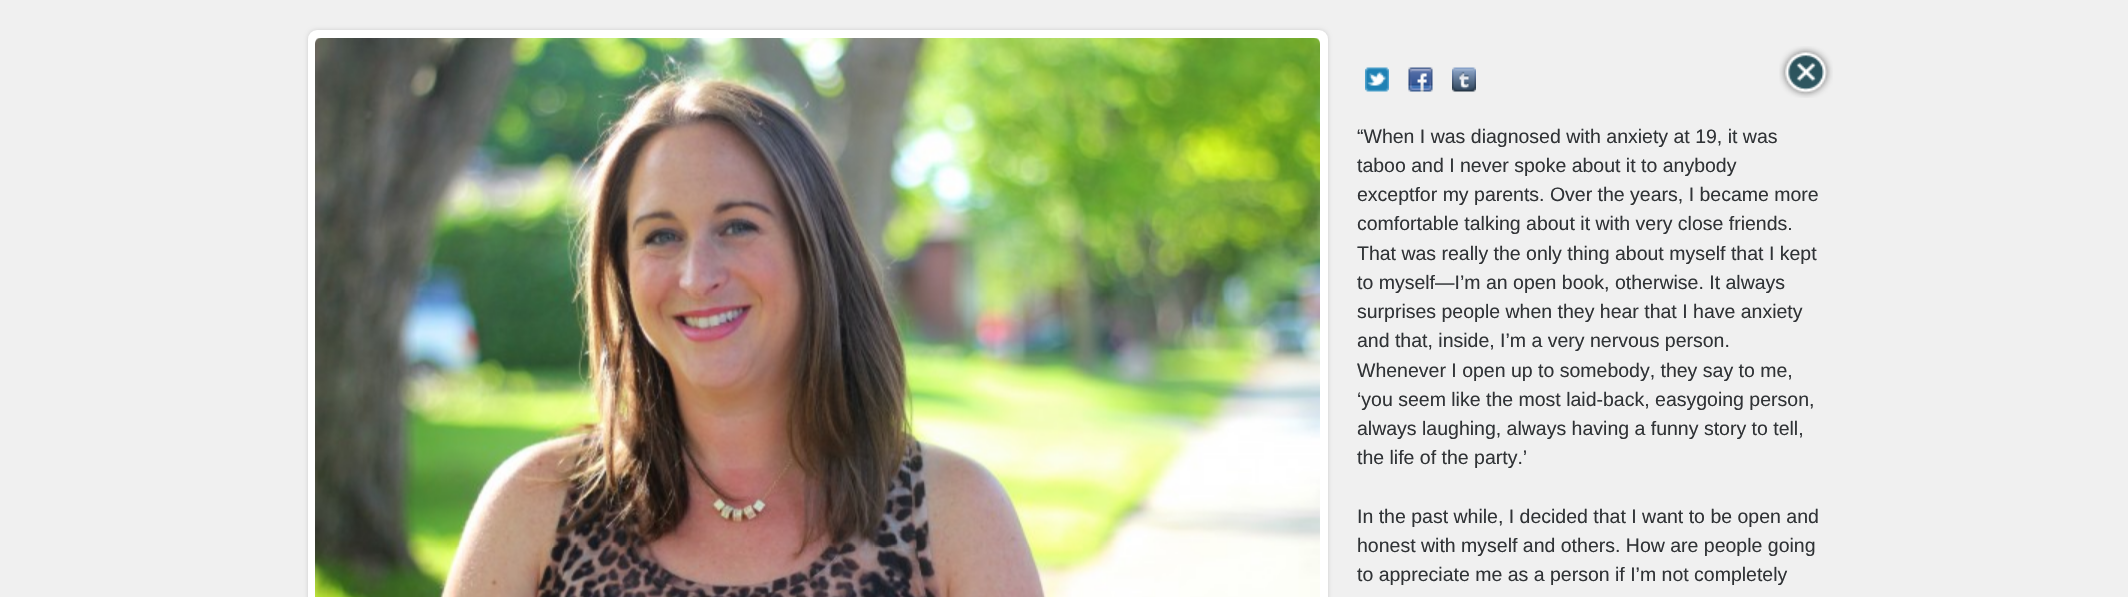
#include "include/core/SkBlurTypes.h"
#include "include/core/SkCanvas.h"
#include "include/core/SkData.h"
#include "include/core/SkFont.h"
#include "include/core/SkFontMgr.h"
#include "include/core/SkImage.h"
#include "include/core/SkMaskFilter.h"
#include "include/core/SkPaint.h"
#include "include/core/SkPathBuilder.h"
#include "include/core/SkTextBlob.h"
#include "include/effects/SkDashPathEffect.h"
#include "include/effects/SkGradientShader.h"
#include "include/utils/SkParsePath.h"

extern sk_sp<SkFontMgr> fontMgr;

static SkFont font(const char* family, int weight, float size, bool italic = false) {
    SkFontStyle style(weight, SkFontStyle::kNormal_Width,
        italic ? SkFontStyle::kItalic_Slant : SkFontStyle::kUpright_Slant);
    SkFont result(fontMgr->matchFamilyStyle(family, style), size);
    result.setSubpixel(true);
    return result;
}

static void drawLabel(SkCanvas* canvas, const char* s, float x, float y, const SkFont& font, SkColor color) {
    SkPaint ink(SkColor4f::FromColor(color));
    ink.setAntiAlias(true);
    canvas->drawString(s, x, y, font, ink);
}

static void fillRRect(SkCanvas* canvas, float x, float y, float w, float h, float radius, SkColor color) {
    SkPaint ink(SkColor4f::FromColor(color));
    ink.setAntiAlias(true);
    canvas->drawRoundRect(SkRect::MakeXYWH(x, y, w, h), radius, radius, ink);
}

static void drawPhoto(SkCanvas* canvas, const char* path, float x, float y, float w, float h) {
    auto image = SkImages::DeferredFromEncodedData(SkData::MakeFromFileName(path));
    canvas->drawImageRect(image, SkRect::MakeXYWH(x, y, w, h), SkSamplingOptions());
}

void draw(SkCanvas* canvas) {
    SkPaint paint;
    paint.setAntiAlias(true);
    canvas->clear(0xFFF0F0F0);
    paint.setColor(0x26000000);
    paint.setMaskFilter(SkMaskFilter::MakeBlur(kNormal_SkBlurStyle, 2));
    canvas->drawRoundRect(SkRect::MakeXYWH(308, 30, 1020, 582), 9, 9, paint);
    paint.setMaskFilter(nullptr);
    fillRRect(canvas, 308, 30, 1020, 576, 9, 0xFFFFFFFF);
    drawPhoto(canvas, "assets/img1.png", 315, 38, 1005, 559);
    drawPhoto(canvas, "assets/img2.png", 1365, 67, 24, 25);
    drawPhoto(canvas, "assets/img3.png", 1408, 67, 25, 25);
    drawPhoto(canvas, "assets/img4.png", 1452, 67, 24, 25);
    drawPhoto(canvas, "assets/img5.png", 1779, 46, 54, 52);
    SkFont font1 = font("Liberation Sans", 400, 19.5f);
    drawLabel(canvas, "“When I was diagnosed with anxiety at 19, it was", 1357, 143, font1, 0xFF303336);
    drawLabel(canvas, "taboo and I never spoke about it to anybody", 1357, 172, font1, 0xFF303336);
    drawLabel(canvas, "exceptfor my parents. Over the years, I became more", 1357, 201, font1, 0xFF303336);
    drawLabel(canvas, "comfortable talking about it with very close friends.", 1357, 230, font1, 0xFF303336);
    drawLabel(canvas, "That was really the only thing about myself that I kept", 1357, 260, font1, 0xFF303336);
    drawLabel(canvas, "to myself—I’m an open book, otherwise. It always", 1357, 289, font1, 0xFF303336);
    drawLabel(canvas, "surprises people when they hear that I have anxiety", 1357, 318, font1, 0xFF303336);
    drawLabel(canvas, "and that, inside, I’m a very nervous person.", 1357, 347, font1, 0xFF303336);
    drawLabel(canvas, "Whenever I open up to somebody, they say to me,", 1357, 377, font1, 0xFF303336);
    drawLabel(canvas, "‘you seem like the most laid-back, easygoing person,", 1357, 406, font1, 0xFF303336);
    drawLabel(canvas, "always laughing, always having a funny story to tell,", 1357, 435, font1, 0xFF303336);
    drawLabel(canvas, "the life of the party.’", 1357, 464, font1, 0xFF303336);
    drawLabel(canvas, "In the past while, I decided that I want to be open and", 1357, 523, font1, 0xFF303336);
    drawLabel(canvas, "honest with myself and others. How are people going", 1357, 552, font1, 0xFF303336);
    drawLabel(canvas, "to appreciate me as a person if I’m not completely", 1357, 581, font1, 0xFF303336);
}
